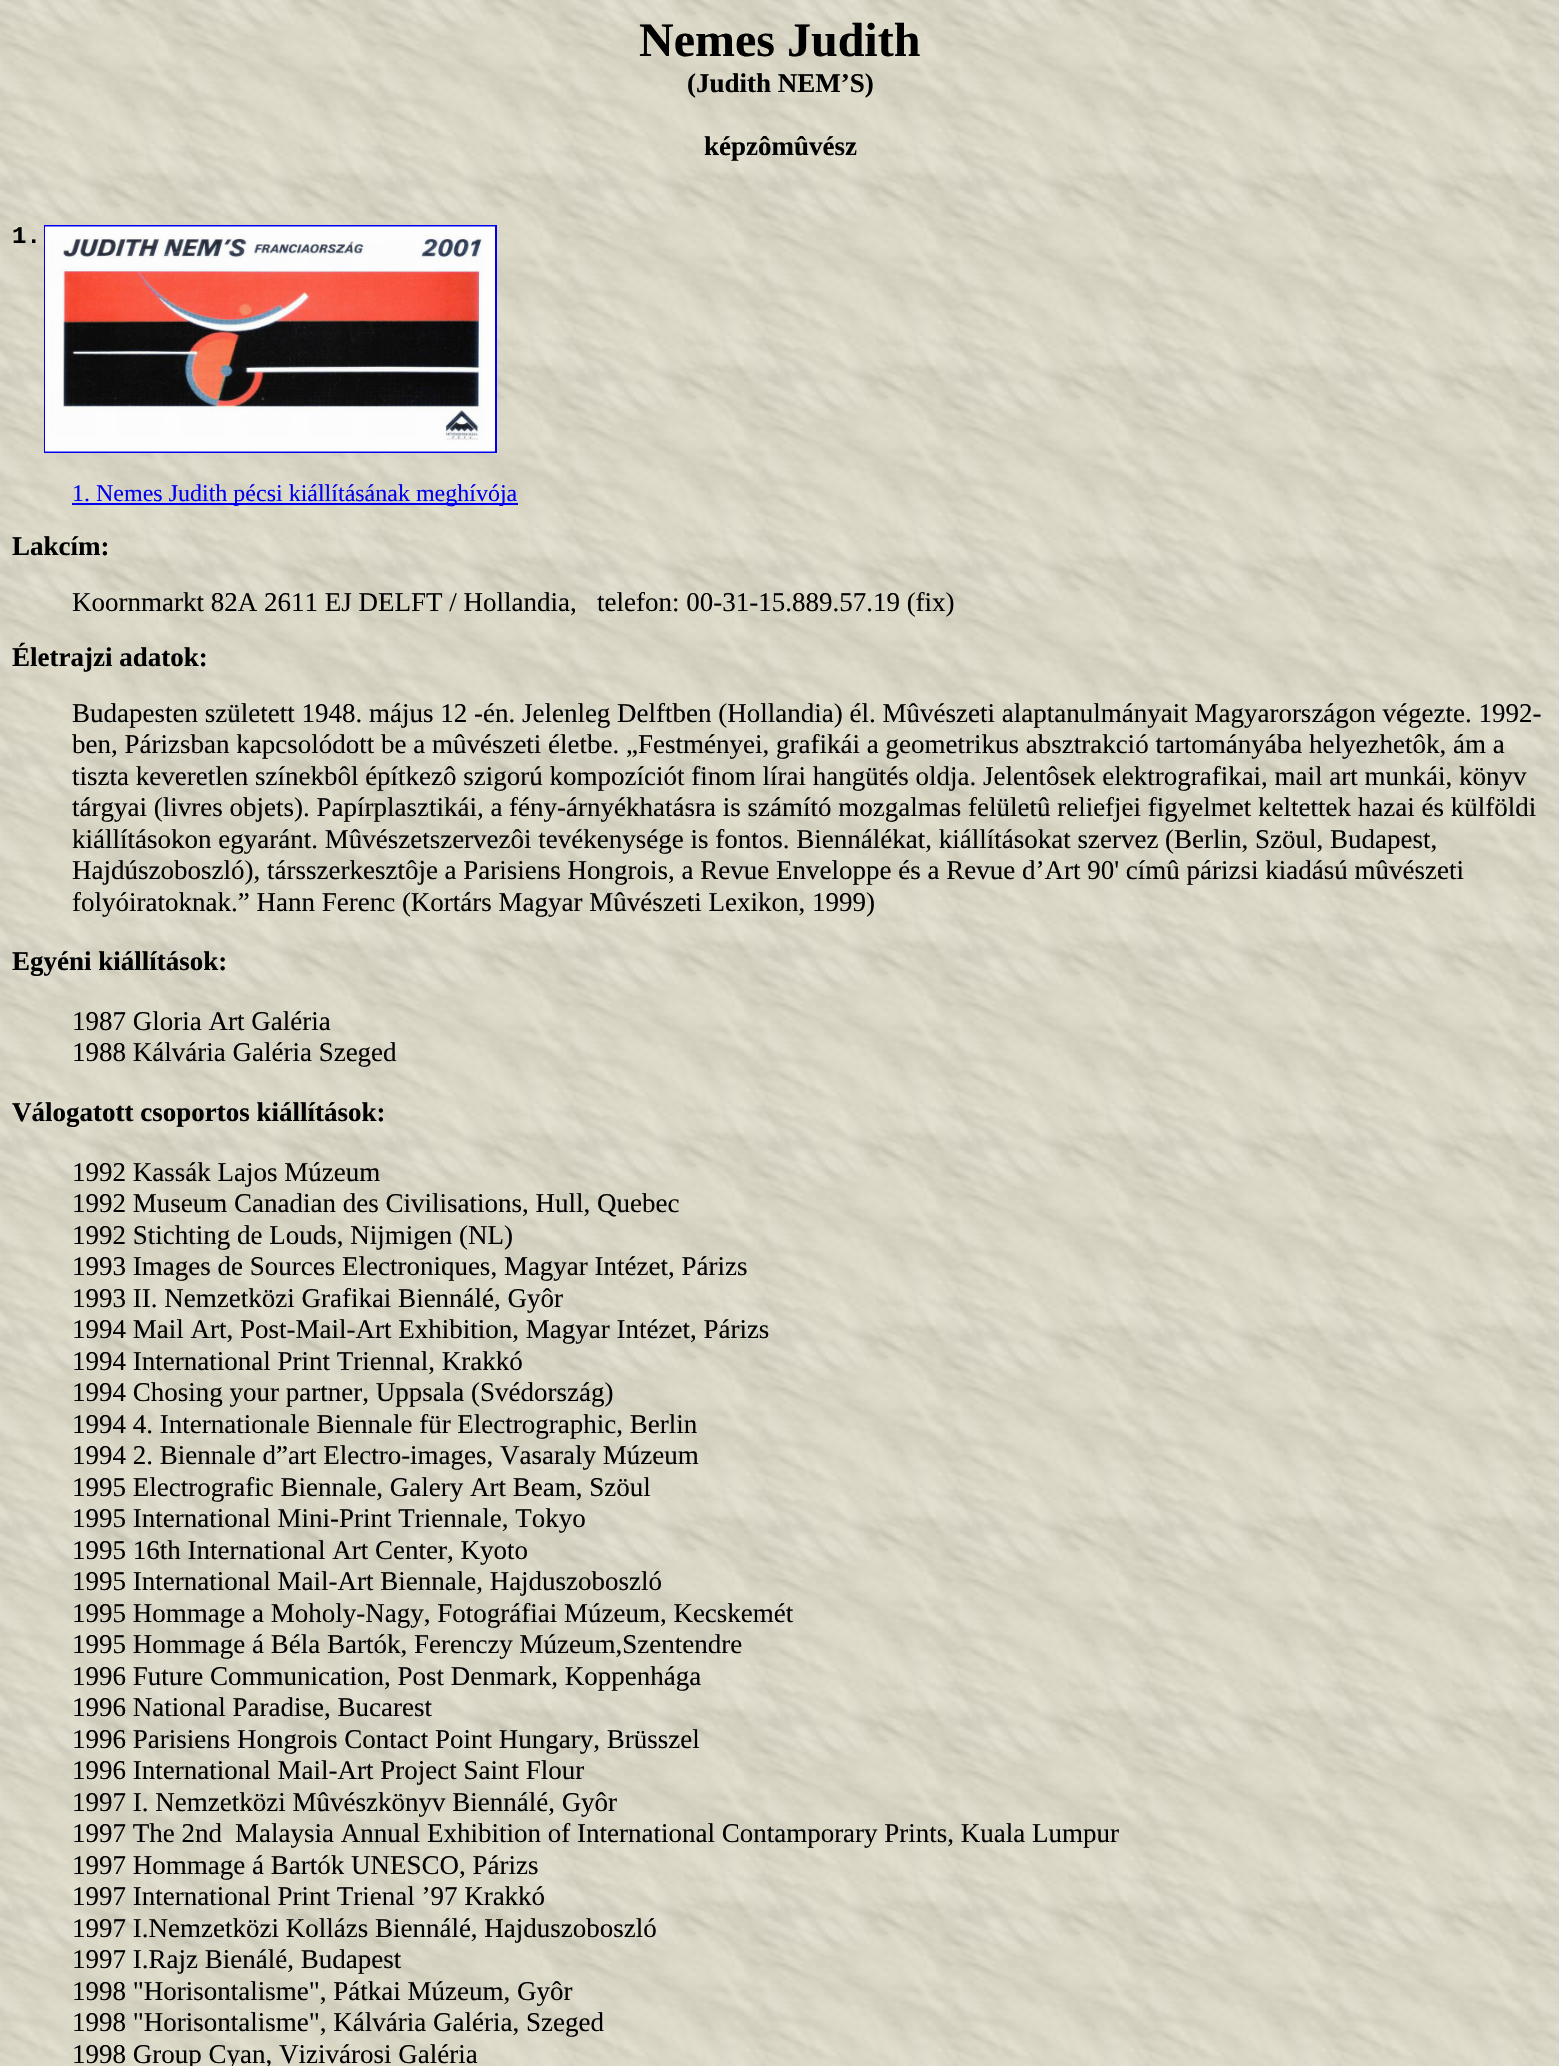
#include "include/core/SkBlurTypes.h"
#include "include/core/SkCanvas.h"
#include "include/core/SkData.h"
#include "include/core/SkFont.h"
#include "include/core/SkFontMgr.h"
#include "include/core/SkImage.h"
#include "include/core/SkMaskFilter.h"
#include "include/core/SkPaint.h"
#include "include/core/SkPathBuilder.h"
#include "include/core/SkTextBlob.h"
#include "include/effects/SkDashPathEffect.h"
#include "include/effects/SkGradientShader.h"
#include "include/utils/SkParsePath.h"

extern sk_sp<SkFontMgr> fontMgr;

static SkFont font(const char* family, int weight, float size, bool italic = false) {
    SkFontStyle style(weight, SkFontStyle::kNormal_Width,
        italic ? SkFontStyle::kItalic_Slant : SkFontStyle::kUpright_Slant);
    SkFont result(fontMgr->matchFamilyStyle(family, style), size);
    result.setSubpixel(true);
    return result;
}

static void drawLabel(SkCanvas* canvas, const char* s, float x, float y, const SkFont& font, SkColor color) {
    SkPaint ink(SkColor4f::FromColor(color));
    ink.setAntiAlias(true);
    canvas->drawString(s, x, y, font, ink);
}

static void fillRect(SkCanvas* canvas, float x, float y, float w, float h, SkColor color) {
    SkPaint ink(SkColor4f::FromColor(color));
    ink.setAntiAlias(true);
    canvas->drawRect(SkRect::MakeXYWH(x, y, w, h), ink);
}

static void drawPhoto(SkCanvas* canvas, const char* path, float x, float y, float w, float h) {
    auto image = SkImages::DeferredFromEncodedData(SkData::MakeFromFileName(path));
    canvas->drawImageRect(image, SkRect::MakeXYWH(x, y, w, h), SkSamplingOptions());
}

void draw(SkCanvas* canvas) {
    SkPaint paint;
    paint.setAntiAlias(true);
    canvas->clear(0xFFFFFFFF);
    drawPhoto(canvas, "assets/img1.png", 0, 0, 1559, 2066);
    SkFont font1 = font("Liberation Serif", 700, 48);
    drawLabel(canvas, "Nemes Judith", 639, 56, font1, 0xFF000000);
    SkFont font2 = font("Liberation Serif", 700, 27);
    drawLabel(canvas, "(Judith NEM’S)", 687, 92, font2, 0xFF000000);
    drawLabel(canvas, "képzômûvész", 704, 155, font2, 0xFF000000);
    paint.setStroke(true);
    paint.setStrokeWidth(2);
    paint.setColor(0xFF0000EE);
    canvas->drawRect(SkRect::MakeXYWH(45, 226, 451, 226), paint);
    SkFont font3 = font("Liberation Mono", 700, 24);
    drawLabel(canvas, "1.", 12, 243, font3, 0xFF000000);
    drawPhoto(canvas, "assets/img2.png", 45, 226, 450, 226);
    fillRect(canvas, 72, 503, 446, 2, 0xFF0000EE);
    SkFont font4 = font("Liberation Serif", 400, 24);
    drawLabel(canvas, "1. Nemes Judith pécsi kiállításának meghívója", 72, 501, font4, 0xFF0000EE);
    drawLabel(canvas, "Lakcím:", 12, 555, font2, 0xFF000000);
    SkFont font5 = font("Liberation Serif", 400, 27);
    drawLabel(canvas, "Koornmarkt 82A 2611 EJ DELFT / Hollandia,   telefon: 00-31-15.889.57.19 (fix)", 72, 611, font5, 0xFF000000);
    drawLabel(canvas, "Életrajzi adatok:", 12, 666, font2, 0xFF000000);
    drawLabel(canvas, "Budapesten született 1948. május 12 -én. Jelenleg Delftben (Hollandia) él. Mûvészeti alaptanulmányait Magyarországon végezte. 1992-", 72, 722, font5, 0xFF000000);
    drawLabel(canvas, "ben, Párizsban kapcsolódott be a mûvészeti életbe. „Festményei, grafikái a geometrikus absztrakció tartományába helyezhetôk, ám a", 72, 753, font5, 0xFF000000);
    drawLabel(canvas, "tiszta keveretlen színekbôl építkezô szigorú kompozíciót finom lírai hangütés oldja. Jelentôsek elektrografikai, mail art munkái, könyv", 72, 785, font5, 0xFF000000);
    drawLabel(canvas, "tárgyai (livres objets). Papírplasztikái, a fény-árnyékhatásra is számító mozgalmas felületû reliefjei figyelmet keltettek hazai és külföldi", 72, 816, font5, 0xFF000000);
    drawLabel(canvas, "kiállításokon egyaránt. Mûvészetszervezôi tevékenysége is fontos. Biennálékat, kiállításokat szervez (Berlin, Szöul, Budapest,", 72, 848, font5, 0xFF000000);
    drawLabel(canvas, "Hajdúszoboszló), társszerkesztôje a Parisiens Hongrois, a Revue Enveloppe és a Revue d’Art 90' címû párizsi kiadású mûvészeti", 72, 879, font5, 0xFF000000);
    drawLabel(canvas, "folyóiratoknak.” Hann Ferenc (Kortárs Magyar Mûvészeti Lexikon, 1999)", 72, 911, font5, 0xFF000000);
    drawLabel(canvas, "Egyéni kiállítások:", 12, 970, font2, 0xFF000000);
    drawLabel(canvas, "1987 Gloria Art Galéria", 72, 1030, font5, 0xFF000000);
    drawLabel(canvas, "1988 Kálvária Galéria Szeged", 72, 1061, font5, 0xFF000000);
    drawLabel(canvas, "Válogatott csoportos kiállítások:", 12, 1121, font2, 0xFF000000);
    drawLabel(canvas, "1992 Kassák Lajos Múzeum", 72, 1181, font5, 0xFF000000);
    drawLabel(canvas, "1992 Museum Canadian des Civilisations, Hull, Quebec", 72, 1212, font5, 0xFF000000);
    drawLabel(canvas, "1992 Stichting de Louds, Nijmigen (NL)", 72, 1244, font5, 0xFF000000);
    drawLabel(canvas, "1993 Images de Sources Electroniques, Magyar Intézet, Párizs", 72, 1275, font5, 0xFF000000);
    drawLabel(canvas, "1993 II. Nemzetközi Grafikai Biennálé, Gyôr", 72, 1307, font5, 0xFF000000);
    drawLabel(canvas, "1994 Mail Art, Post-Mail-Art Exhibition, Magyar Intézet, Párizs", 72, 1338, font5, 0xFF000000);
    drawLabel(canvas, "1994 International Print Triennal, Krakkó", 72, 1370, font5, 0xFF000000);
    drawLabel(canvas, "1994 Chosing your partner, Uppsala (Svédország)", 72, 1401, font5, 0xFF000000);
    drawLabel(canvas, "1994 4. Internationale Biennale für Electrographic, Berlin", 72, 1433, font5, 0xFF000000);
    drawLabel(canvas, "1994 2. Biennale d”art Electro-images, Vasaraly Múzeum", 72, 1464, font5, 0xFF000000);
    drawLabel(canvas, "1995 Electrografic Biennale, Galery Art Beam, Szöul", 72, 1496, font5, 0xFF000000);
    drawLabel(canvas, "1995 International Mini-Print Triennale, Tokyo", 72, 1527, font5, 0xFF000000);
    drawLabel(canvas, "1995 16th International Art Center, Kyoto", 72, 1559, font5, 0xFF000000);
    drawLabel(canvas, "1995 International Mail-Art Biennale, Hajduszoboszló", 72, 1590, font5, 0xFF000000);
    drawLabel(canvas, "1995 Hommage a Moholy-Nagy, Fotográfiai Múzeum, Kecskemét", 72, 1622, font5, 0xFF000000);
    drawLabel(canvas, "1995 Hommage á Béla Bartók, Ferenczy Múzeum,Szentendre", 72, 1653, font5, 0xFF000000);
    drawLabel(canvas, "1996 Future Communication, Post Denmark, Koppenhága", 72, 1685, font5, 0xFF000000);
    drawLabel(canvas, "1996 National Paradise, Bucarest", 72, 1716, font5, 0xFF000000);
    drawLabel(canvas, "1996 Parisiens Hongrois Contact Point Hungary, Brüsszel", 72, 1748, font5, 0xFF000000);
    drawLabel(canvas, "1996 International Mail-Art Project Saint Flour", 72, 1779, font5, 0xFF000000);
    drawLabel(canvas, "1997 I. Nemzetközi Mûvészkönyv Biennálé, Gyôr", 72, 1811, font5, 0xFF000000);
    drawLabel(canvas, "1997 The 2nd", 72, 1842, font5, 0xFF000000);
    drawLabel(canvas, "Malaysia Annual Exhibition of International Contamporary Prints, Kuala Lumpur", 235, 1842, font5, 0xFF000000);
    drawLabel(canvas, "1997 Hommage á Bartók UNESCO, Párizs", 72, 1874, font5, 0xFF000000);
    drawLabel(canvas, "1997 International Print Trienal ’97 Krakkó", 72, 1905, font5, 0xFF000000);
    drawLabel(canvas, "1997 I.Nemzetközi Kollázs Biennálé, Hajduszoboszló", 72, 1937, font5, 0xFF000000);
    drawLabel(canvas, "1997 I.Rajz Bienálé, Budapest", 72, 1968, font5, 0xFF000000);
    drawLabel(canvas, "1998 \"Horisontalisme\", Pátkai Múzeum, Gyôr", 72, 2000, font5, 0xFF000000);
    drawLabel(canvas, "1998 \"Horisontalisme\", Kálvária Galéria, Szeged", 72, 2031, font5, 0xFF000000);
    drawLabel(canvas, "1998 Group Cyan, Vizivárosi Galéria", 72, 2063, font5, 0xFF000000);
}
